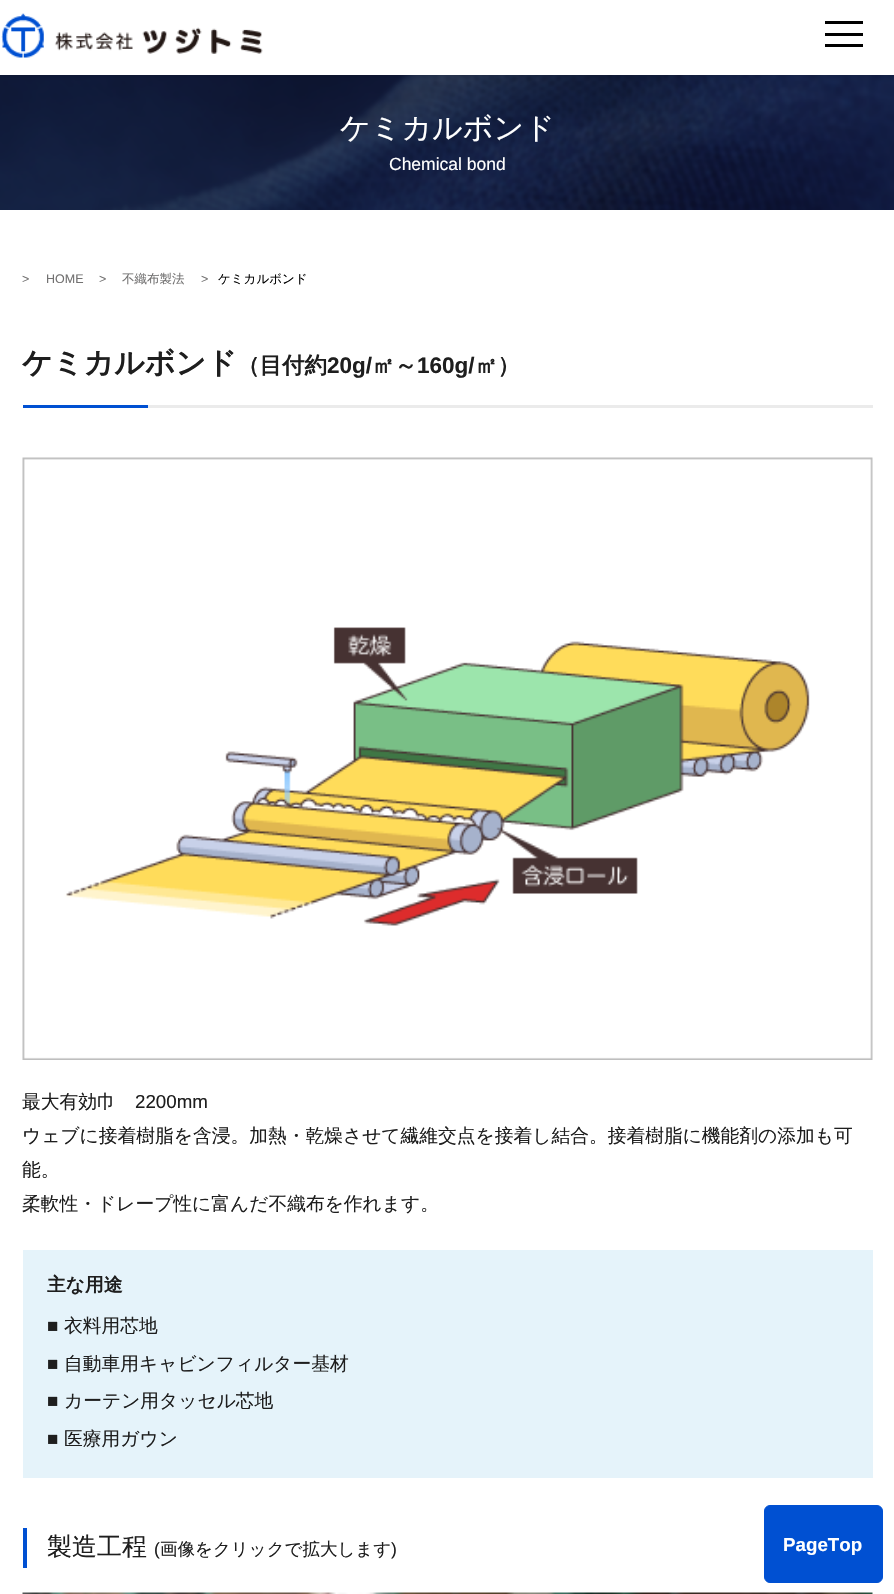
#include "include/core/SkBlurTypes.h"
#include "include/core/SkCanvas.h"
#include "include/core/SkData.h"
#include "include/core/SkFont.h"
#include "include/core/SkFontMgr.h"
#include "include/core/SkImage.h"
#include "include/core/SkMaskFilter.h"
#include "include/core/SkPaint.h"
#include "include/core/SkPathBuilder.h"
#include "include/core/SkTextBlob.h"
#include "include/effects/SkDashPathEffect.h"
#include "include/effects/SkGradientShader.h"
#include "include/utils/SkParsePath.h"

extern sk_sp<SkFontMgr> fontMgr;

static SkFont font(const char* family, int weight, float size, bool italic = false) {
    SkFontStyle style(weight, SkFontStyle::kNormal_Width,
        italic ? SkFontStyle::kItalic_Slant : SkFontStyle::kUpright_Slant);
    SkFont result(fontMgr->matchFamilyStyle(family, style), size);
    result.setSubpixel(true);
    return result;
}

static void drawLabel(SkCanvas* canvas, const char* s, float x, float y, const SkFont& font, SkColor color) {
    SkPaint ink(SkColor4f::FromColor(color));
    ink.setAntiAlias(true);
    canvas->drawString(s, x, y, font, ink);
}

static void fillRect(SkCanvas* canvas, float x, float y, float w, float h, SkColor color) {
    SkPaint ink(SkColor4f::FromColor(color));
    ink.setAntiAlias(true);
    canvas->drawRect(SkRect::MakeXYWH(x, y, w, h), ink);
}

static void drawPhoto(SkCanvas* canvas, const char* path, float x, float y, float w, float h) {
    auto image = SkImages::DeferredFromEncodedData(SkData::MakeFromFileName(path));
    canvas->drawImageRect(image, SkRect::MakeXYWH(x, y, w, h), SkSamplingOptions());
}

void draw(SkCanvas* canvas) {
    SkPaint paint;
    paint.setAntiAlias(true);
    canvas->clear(0xFFFFFFFF);
    drawPhoto(canvas, "assets/img1.png", 1, 13, 262, 45);
    fillRect(canvas, 825, 33, 38, 3, 0xFF000000);
    fillRect(canvas, 825, 21, 38, 3, 0xFF000000);
    fillRect(canvas, 825, 44, 38, 3, 0xFF000000);
    drawPhoto(canvas, "assets/img2.png", 0, 75, 894, 135);
    SkFont font1 = font("WenQuanYi Zen Hei", 500, 30);
    drawLabel(canvas, "ケミカルボンド", 340, 138, font1, 0xFFFFFFFF);
    SkFont font2 = font("Liberation Sans", 400, 17.5f);
    drawLabel(canvas, "Chemical bond", 389, 170, font2, 0xFFFFFFFF);
    SkFont font3 = font("Liberation Sans", 400, 12.5f);
    drawLabel(canvas, ">", 22, 283, font3, 0xFF727171);
    drawLabel(canvas, "HOME", 46, 283, font3, 0xFF727171);
    drawLabel(canvas, ">", 99, 283, font3, 0xFF727171);
    SkFont font4 = font("WenQuanYi Zen Hei", 500, 12.5f);
    drawLabel(canvas, "不織布製法", 122, 283, font4, 0xFF727171);
    drawLabel(canvas, ">", 201, 283, font3, 0xFF727171);
    drawLabel(canvas, "ケミカルボンド", 218, 283, font4, 0xFF000000);
    SkFont font5 = font("WenQuanYi Zen Hei", 700, 30);
    drawLabel(canvas, "ケミカルボンド", 22, 373, font5, 0xFF1E1E1E);
    SkFont font6 = font("WenQuanYi Zen Hei", 700, 22.5f);
    drawLabel(canvas, "（目付約", 237, 373, font6, 0xFF1E1E1E);
    SkFont font7 = font("Liberation Sans", 700, 22.5f);
    drawLabel(canvas, "20g/", 327, 373, font7, 0xFF1E1E1E);
    drawLabel(canvas, "㎡～", 372, 373, font6, 0xFF1E1E1E);
    drawLabel(canvas, "160g/", 417, 373, font7, 0xFF1E1E1E);
    drawLabel(canvas, "㎡）", 475, 373, font6, 0xFF1E1E1E);
    fillRect(canvas, 23, 405, 125, 3, 0xFF0050D2);
    fillRect(canvas, 148, 405, 725, 3, 0xFFEBEBEB);
    drawPhoto(canvas, "assets/img3.png", 22, 457, 851, 603);
    SkFont font8 = font("WenQuanYi Zen Hei", 500, 18.75f);
    drawLabel(canvas, "最大有効巾", 22, 1108, font8, 0xFF1E1E1E);
    SkFont font9 = font("Liberation Sans", 400, 18.75f);
    drawLabel(canvas, "2200mm", 135, 1108, font9, 0xFF1E1E1E);
    drawLabel(canvas, "ウェブに接着樹脂を含浸。加熱・乾燥させて繊維交点を接着し結合。接着樹脂に機能剤の添加も可", 22, 1142, font8, 0xFF1E1E1E);
    drawLabel(canvas, "能。", 22, 1176, font8, 0xFF1E1E1E);
    drawLabel(canvas, "柔軟性・ドレープ性に富んだ不織布を作れます。", 22, 1210, font8, 0xFF1E1E1E);
    fillRect(canvas, 23, 1250, 850, 228, 0xFFE5F3FA);
    SkFont font10 = font("WenQuanYi Zen Hei", 700, 18.75f);
    drawLabel(canvas, "主な用途", 47, 1291, font10, 0xFF1E1E1E);
    drawLabel(canvas, "■", 47, 1332, font9, 0xFF1E1E1E);
    drawLabel(canvas, "衣料用芯地", 64, 1332, font8, 0xFF1E1E1E);
    drawLabel(canvas, "■", 47, 1370, font9, 0xFF1E1E1E);
    drawLabel(canvas, "自動車用キャビンフィルター基材", 64, 1370, font8, 0xFF1E1E1E);
    drawLabel(canvas, "■", 47, 1407, font9, 0xFF1E1E1E);
    drawLabel(canvas, "カーテン用タッセル芯地", 64, 1407, font8, 0xFF1E1E1E);
    drawLabel(canvas, "■", 47, 1445, font9, 0xFF1E1E1E);
    drawLabel(canvas, "医療用ガウン", 64, 1445, font8, 0xFF1E1E1E);
    fillRect(canvas, 23, 1528, 4, 40, 0xFF0050D2);
    SkFont font11 = font("WenQuanYi Zen Hei", 500, 25);
    drawLabel(canvas, "製造工程", 47, 1555, font11, 0xFF1E1E1E);
    drawLabel(canvas, "(", 154, 1555, font2, 0xFF1E1E1E);
    SkFont font12 = font("WenQuanYi Zen Hei", 500, 17.5f);
    drawLabel(canvas, "画像をクリックで拡大します", 160, 1555, font12, 0xFF1E1E1E);
    drawLabel(canvas, ")", 391, 1555, font2, 0xFF1E1E1E);
    drawPhoto(canvas, "assets/img4.png", 22, 1592, 851, 2);
    paint.setColor(0xFF0050D2);
    canvas->drawRoundRect(SkRect::MakeXYWH(764.5f, 1505.5f, 118, 77), 5.5f, 5.5f, paint);
    paint.setStroke(true);
    paint.setStrokeWidth(1);
    canvas->drawRoundRect(SkRect::MakeXYWH(764.5f, 1505.5f, 118, 77), 5.5f, 5.5f, paint);
    SkFont font13 = font("Liberation Sans", 700, 18.75f);
    drawLabel(canvas, "PageTop", 783, 1551, font13, 0xFFFFFFFF);
}
